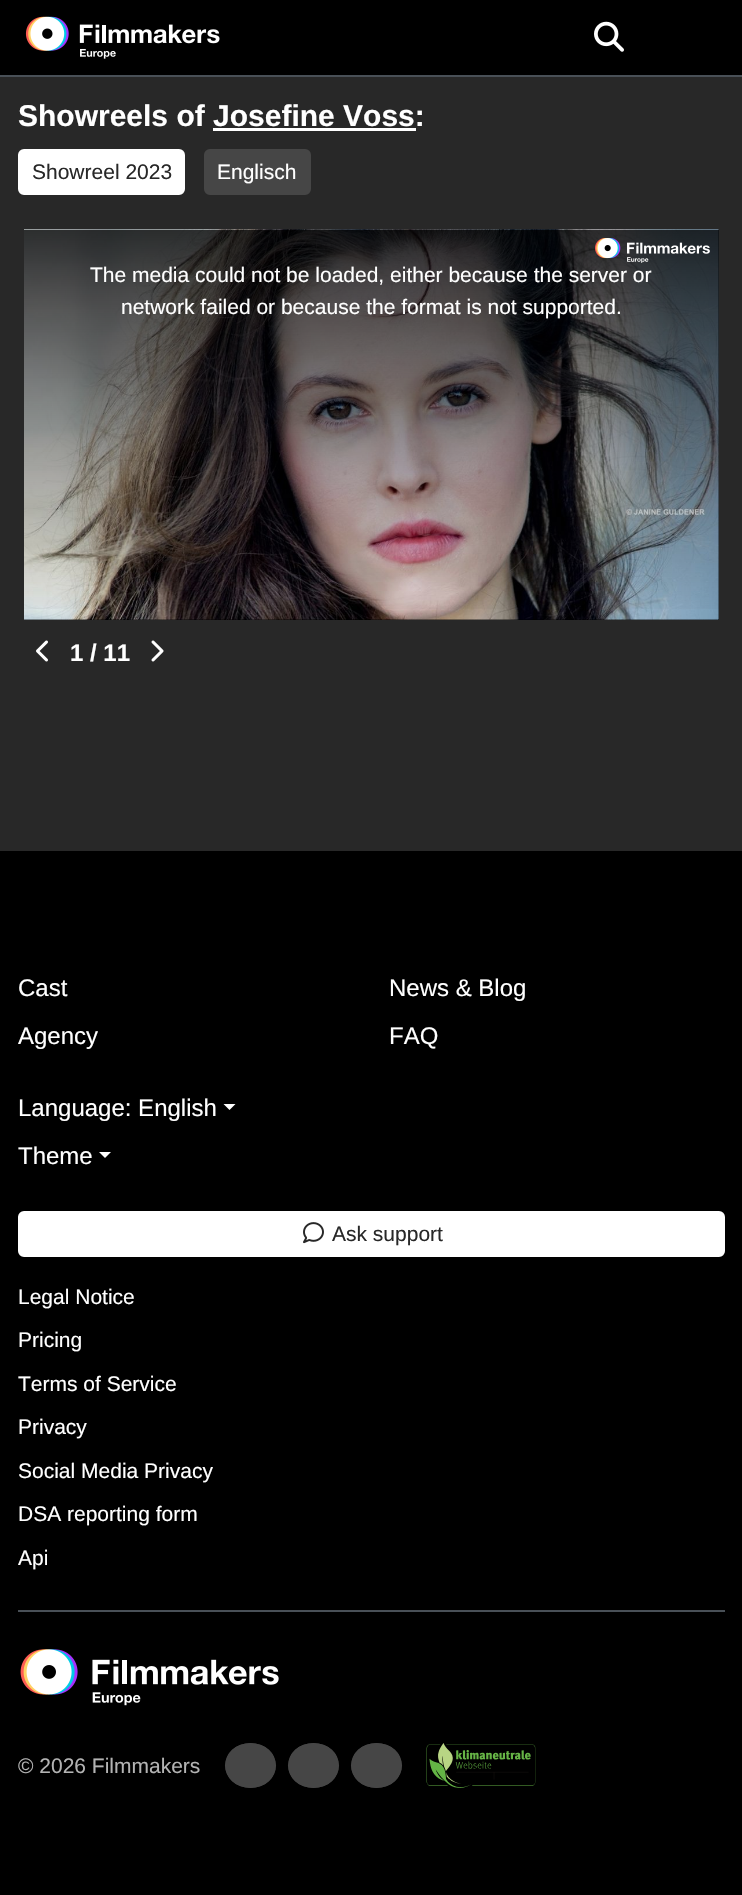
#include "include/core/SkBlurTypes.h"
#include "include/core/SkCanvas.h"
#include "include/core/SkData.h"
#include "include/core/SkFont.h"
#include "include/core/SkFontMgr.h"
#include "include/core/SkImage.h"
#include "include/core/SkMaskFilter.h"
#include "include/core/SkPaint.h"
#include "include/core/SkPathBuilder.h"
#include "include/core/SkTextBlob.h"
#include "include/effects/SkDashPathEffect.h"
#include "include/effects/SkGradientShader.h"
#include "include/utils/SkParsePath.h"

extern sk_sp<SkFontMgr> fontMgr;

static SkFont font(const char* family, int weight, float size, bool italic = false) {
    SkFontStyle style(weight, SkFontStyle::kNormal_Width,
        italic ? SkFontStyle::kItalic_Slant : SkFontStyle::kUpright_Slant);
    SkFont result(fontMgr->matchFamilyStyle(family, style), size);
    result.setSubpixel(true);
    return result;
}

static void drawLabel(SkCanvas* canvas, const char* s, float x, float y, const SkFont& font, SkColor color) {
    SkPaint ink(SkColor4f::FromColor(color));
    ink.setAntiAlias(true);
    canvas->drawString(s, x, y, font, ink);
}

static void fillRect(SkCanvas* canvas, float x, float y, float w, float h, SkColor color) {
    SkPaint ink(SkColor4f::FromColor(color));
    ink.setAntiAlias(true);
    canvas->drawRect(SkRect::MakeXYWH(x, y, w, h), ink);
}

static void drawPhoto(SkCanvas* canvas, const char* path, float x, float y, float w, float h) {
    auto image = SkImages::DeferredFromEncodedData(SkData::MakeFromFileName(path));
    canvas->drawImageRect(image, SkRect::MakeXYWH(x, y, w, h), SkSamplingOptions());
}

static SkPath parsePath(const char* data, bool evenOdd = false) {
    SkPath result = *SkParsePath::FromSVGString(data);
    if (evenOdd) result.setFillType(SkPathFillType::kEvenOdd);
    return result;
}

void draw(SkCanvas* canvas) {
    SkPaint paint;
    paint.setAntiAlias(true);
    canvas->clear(0xFF282828);
    fillRect(canvas, 0, 0, 742, 75, 0xFF000000);
    fillRect(canvas, 0, 75, 742, 2, 0xFF495057);
    drawPhoto(canvas, "assets/img1.png", 25, 16, 195, 43);
    drawPhoto(canvas, "assets/img2.png", 594, 21, 30, 31);
    SkFont font1 = font("Liberation Sans", 700, 30);
    drawLabel(canvas, "Showreels of Josefine Voss:", 18, 126, font1, 0xFFFFFFFF);
    fillRect(canvas, 213, 128, 203, 3, 0xFFFFFFFF);
    paint.setColor(0xFFFFFFFF);
    canvas->drawRoundRect(SkRect::MakeXYWH(19, 150, 165, 44), 5, 5, paint);
    paint.setStroke(true);
    paint.setStrokeWidth(2);
    canvas->drawRoundRect(SkRect::MakeXYWH(19, 150, 165, 44), 5, 5, paint);
    SkFont font2 = font("Liberation Sans", 400, 21);
    drawLabel(canvas, "Showreel 2023", 32, 179, font2, 0xFF282828);
    paint.setStroke(false);
    paint.setColor(0xFF464646);
    canvas->drawRoundRect(SkRect::MakeXYWH(205, 150, 105, 44), 5, 5, paint);
    paint.setStroke(true);
    canvas->drawRoundRect(SkRect::MakeXYWH(205, 150, 105, 44), 5, 5, paint);
    drawLabel(canvas, "Englisch", 217, 179, font2, 0xFFFFFFFF);
    fillRect(canvas, 24, 230, 695, 390, 0xFF000000);
    drawPhoto(canvas, "assets/img3.png", 24, 229, 695, 391);
    drawPhoto(canvas, "assets/img4.png", 24, 229, 695, 391);
    paint.setStroke(false);
    {
        const SkColor colors[] = {0xCC000000, 0x00000000};
        const float stops[] = {0, 1};
        const SkPoint ends[] = {{371, 229}, {371, 620}};
        paint.setShader(SkGradientShader::MakeLinear(ends, colors, stops, 2, SkTileMode::kClamp));
        paint.setAlpha(255);
    }
    canvas->drawRect(SkRect::MakeXYWH(24, 230, 695, 379), paint);
    drawPhoto(canvas, "assets/img5.png", 595, 238, 115, 25);
    drawLabel(canvas, "The media could not be loaded, either because the server or", 90, 282, font2, 0xFFFFFFFF);
    drawLabel(canvas, "network failed or because the format is not supported.", 121, 314, font2, 0xFFFFFFFF);
    drawPhoto(canvas, "assets/img6.png", 36, 640, 12, 22);
    SkFont font3 = font("Liberation Sans", 700, 24);
    drawLabel(canvas, "1 / 11", 70, 661, font3, 0xFFFFFFFF);
    drawPhoto(canvas, "assets/img7.png", 151, 640, 13, 22);
    fillRect(canvas, 0, 851, 742, 1044, 0xFF000000);
    SkFont font4 = font("Liberation Sans", 400, 24);
    drawLabel(canvas, "Cast", 18, 996, font4, 0xFFFFFFFF);
    drawLabel(canvas, "Agency", 18, 1044, font4, 0xFFFFFFFF);
    drawLabel(canvas, "News & Blog", 389, 996, font4, 0xFFFFFFFF);
    drawLabel(canvas, "FAQ", 389, 1044, font4, 0xFFFFFFFF);
    drawLabel(canvas, "Language: English", 18, 1116, font4, 0xFFFFFFFF);
    paint.setShader(nullptr);
    paint.setColor(0xFFFFFFFF);
    canvas->drawPath(parsePath("M223.5 1104H235.5L229.5 1110Z"), paint);
    drawLabel(canvas, "Theme", 18, 1164, font4, 0xFFFFFFFF);
    canvas->drawPath(parsePath("M99 1152H111L105 1158Z"), paint);
    canvas->drawRoundRect(SkRect::MakeXYWH(19, 1212, 705, 44), 5, 5, paint);
    paint.setStroke(true);
    canvas->drawRoundRect(SkRect::MakeXYWH(19, 1212, 705, 44), 5, 5, paint);
    drawPhoto(canvas, "assets/img8.png", 303, 1222, 21, 22);
    drawLabel(canvas, "Ask support", 332, 1241, font2, 0xFF282828);
    drawLabel(canvas, "Legal Notice", 18, 1304, font2, 0xFFFFFFFF);
    drawLabel(canvas, "Pricing", 18, 1347, font2, 0xFFFFFFFF);
    drawLabel(canvas, "Terms of Service", 18, 1391, font2, 0xFFFFFFFF);
    drawLabel(canvas, "Privacy", 18, 1434, font2, 0xFFFFFFFF);
    drawLabel(canvas, "Social Media Privacy", 18, 1478, font2, 0xFFFFFFFF);
    drawLabel(canvas, "DSA reporting form", 18, 1521, font2, 0xFFFFFFFF);
    drawLabel(canvas, "Api", 18, 1565, font2, 0xFFFFFFFF);
    fillRect(canvas, 18, 1610, 707, 2, 0xFF495057);
    drawPhoto(canvas, "assets/img9.png", 20, 1649, 259, 57);
    drawLabel(canvas, "© 2026 Filmmakers", 18, 1773, font2, 0xFFB3B3B3);
    paint.setStroke(false);
    paint.setColor(0xFF464646);
    canvas->drawOval(SkRect::MakeXYWH(225, 1743, 51, 45), paint);
    paint.setStroke(true);
    paint.setStrokeWidth(1.5f);
    canvas->drawPath(parsePath("M250.5 1744C283 1744 283 1787 250.5 1787C218 1787 218 1744 250.5 1744Z"), paint);
    paint.setStroke(false);
    canvas->drawOval(SkRect::MakeXYWH(288, 1743, 51, 45), paint);
    paint.setStroke(true);
    canvas->drawPath(parsePath("M313.5 1744C346 1744 346 1787 313.5 1787C281 1787 281 1744 313.5 1744Z"), paint);
    paint.setStroke(false);
    canvas->drawOval(SkRect::MakeXYWH(351, 1743, 51, 45), paint);
    paint.setStroke(true);
    canvas->drawPath(parsePath("M376.5 1744C409 1744 409 1787 376.5 1787C344 1787 344 1744 376.5 1744Z"), paint);
    drawPhoto(canvas, "assets/img10.png", 426, 1743, 110, 45);
}
